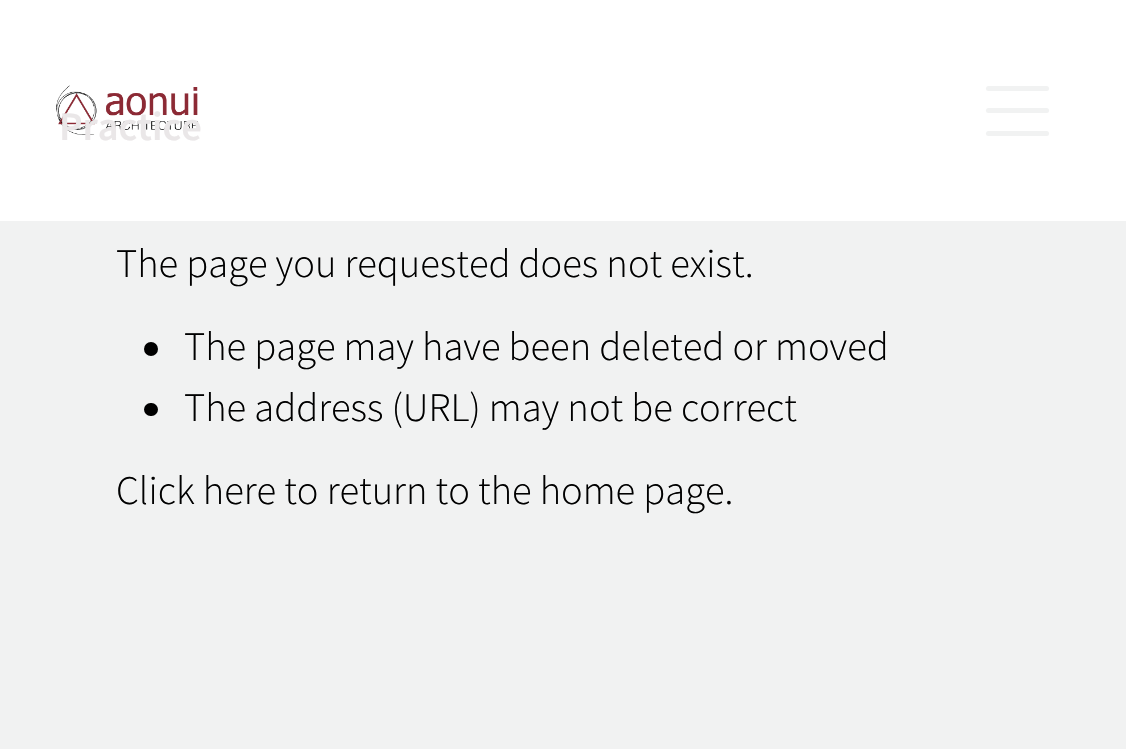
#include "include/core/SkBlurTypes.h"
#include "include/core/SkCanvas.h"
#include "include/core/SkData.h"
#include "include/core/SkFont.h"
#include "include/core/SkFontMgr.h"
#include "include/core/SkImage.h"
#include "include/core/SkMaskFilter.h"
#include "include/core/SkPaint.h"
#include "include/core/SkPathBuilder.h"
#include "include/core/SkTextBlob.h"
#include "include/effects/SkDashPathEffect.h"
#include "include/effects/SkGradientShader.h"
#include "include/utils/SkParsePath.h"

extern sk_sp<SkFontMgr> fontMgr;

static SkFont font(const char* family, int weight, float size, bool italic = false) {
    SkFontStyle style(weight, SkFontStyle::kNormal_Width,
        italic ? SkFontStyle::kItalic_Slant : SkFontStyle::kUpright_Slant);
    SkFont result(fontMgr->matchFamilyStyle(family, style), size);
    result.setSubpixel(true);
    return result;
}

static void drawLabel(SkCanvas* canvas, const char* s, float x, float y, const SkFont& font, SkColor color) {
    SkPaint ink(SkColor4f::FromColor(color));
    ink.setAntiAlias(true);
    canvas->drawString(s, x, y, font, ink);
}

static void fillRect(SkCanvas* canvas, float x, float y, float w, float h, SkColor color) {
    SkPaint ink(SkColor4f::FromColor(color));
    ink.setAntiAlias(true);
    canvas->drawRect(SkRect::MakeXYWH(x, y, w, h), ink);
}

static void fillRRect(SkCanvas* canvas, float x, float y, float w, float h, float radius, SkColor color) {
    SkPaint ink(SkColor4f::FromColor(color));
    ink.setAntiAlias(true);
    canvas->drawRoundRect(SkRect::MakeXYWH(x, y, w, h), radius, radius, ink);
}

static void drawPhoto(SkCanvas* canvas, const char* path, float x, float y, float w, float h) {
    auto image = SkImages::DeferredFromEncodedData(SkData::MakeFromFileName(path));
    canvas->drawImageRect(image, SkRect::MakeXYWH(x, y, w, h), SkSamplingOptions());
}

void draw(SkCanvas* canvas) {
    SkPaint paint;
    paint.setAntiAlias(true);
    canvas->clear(0xFFF1F2F2);
    fillRect(canvas, 0, 0, 1126, 221, 0xFFFFFFFF);
    drawPhoto(canvas, "assets/img1.png", 56, 85, 142, 50);
    fillRRect(canvas, 986, 108, 63, 5, 2.5f, 0xFFF1F2F2);
    fillRRect(canvas, 986, 86, 63, 5, 2.5f, 0xFFF1F2F2);
    fillRRect(canvas, 986, 131, 63, 5, 2.5f, 0xFFF1F2F2);
    SkFont font1 = font("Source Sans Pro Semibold", 600, 40.5f);
    drawLabel(canvas, "Practice", 59, 140, font1, 0xFFEAE7E8);
    SkFont font2 = font("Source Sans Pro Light", 300, 40.5f);
    drawLabel(canvas, "The page you requested does not exist.", 116, 277, font2, 0xFF000000);
    paint.setColor(0xFF000000);
    canvas->drawCircle(151, 349, 7, paint);
    drawLabel(canvas, "The page may have been deleted or moved", 184, 360, font2, 0xFF000000);
    fillRRect(canvas, 144, 403, 14, 13, 6.5f, 0xFF000000);
    drawLabel(canvas, "The address (URL) may not be correct", 184, 421, font2, 0xFF000000);
    drawLabel(canvas, "Click here to return to the home page.", 116, 504, font2, 0xFF000000);
}
